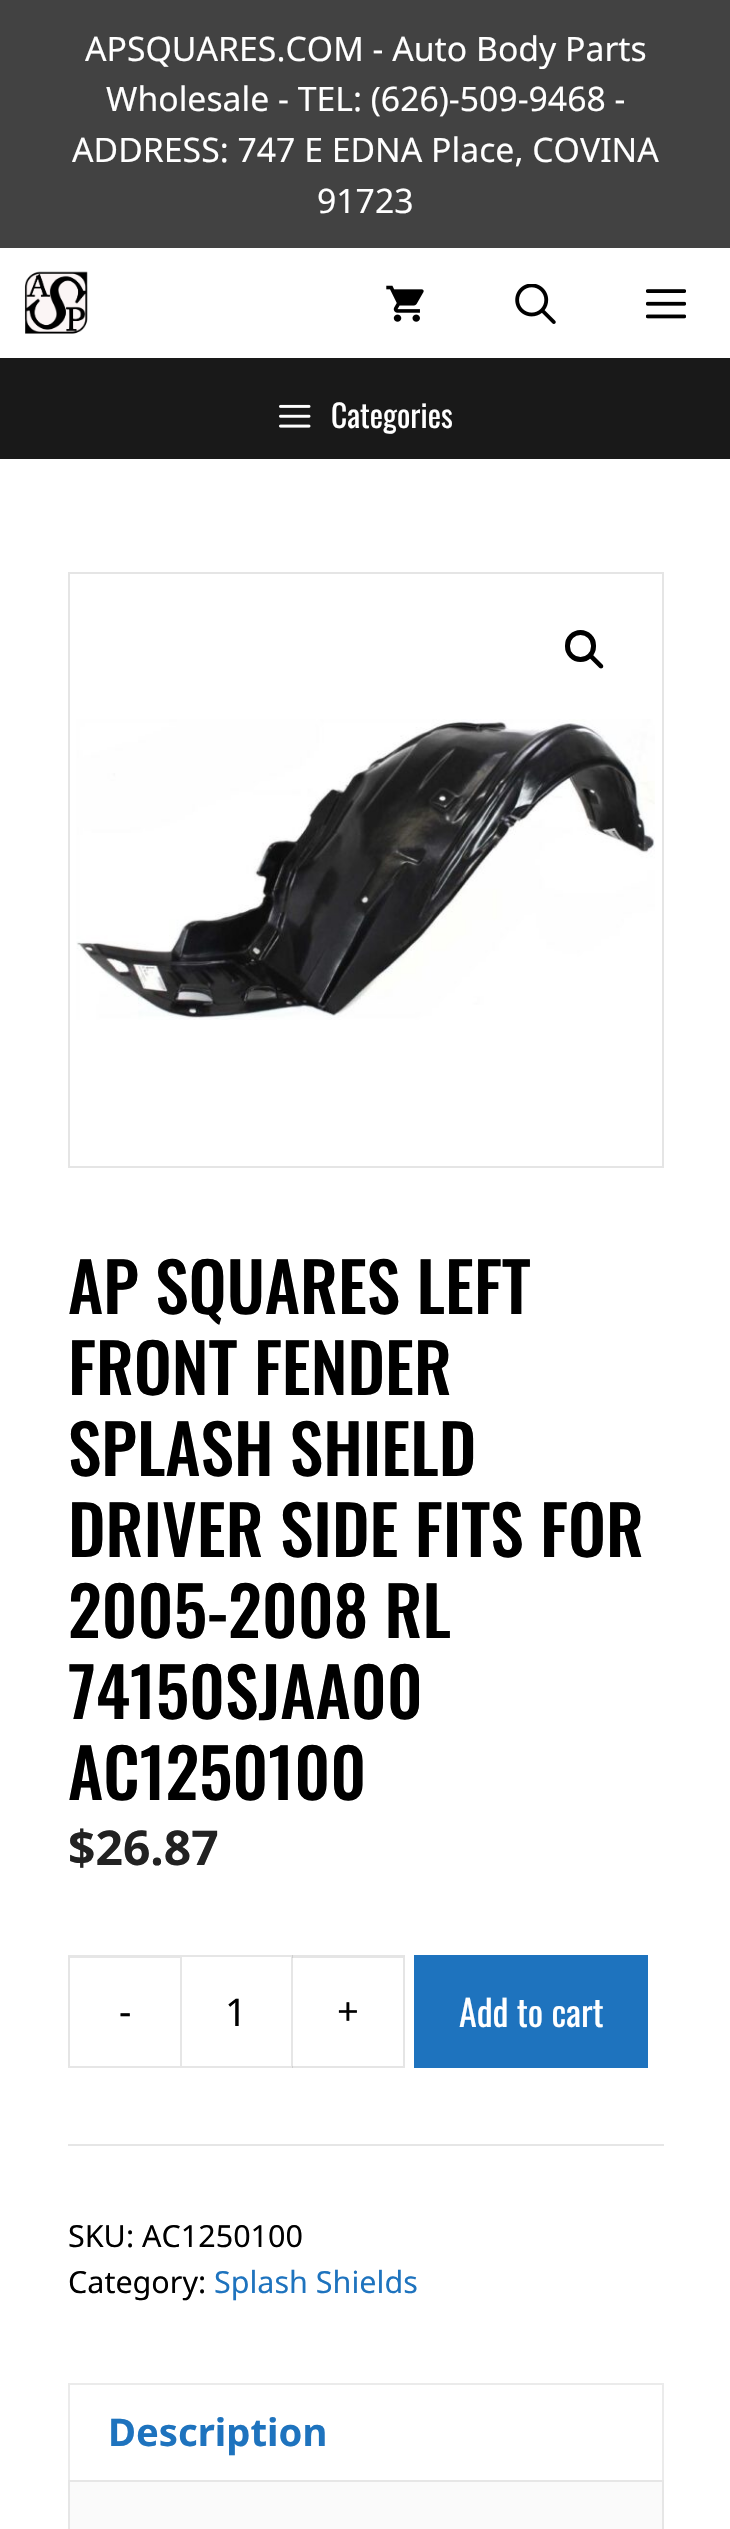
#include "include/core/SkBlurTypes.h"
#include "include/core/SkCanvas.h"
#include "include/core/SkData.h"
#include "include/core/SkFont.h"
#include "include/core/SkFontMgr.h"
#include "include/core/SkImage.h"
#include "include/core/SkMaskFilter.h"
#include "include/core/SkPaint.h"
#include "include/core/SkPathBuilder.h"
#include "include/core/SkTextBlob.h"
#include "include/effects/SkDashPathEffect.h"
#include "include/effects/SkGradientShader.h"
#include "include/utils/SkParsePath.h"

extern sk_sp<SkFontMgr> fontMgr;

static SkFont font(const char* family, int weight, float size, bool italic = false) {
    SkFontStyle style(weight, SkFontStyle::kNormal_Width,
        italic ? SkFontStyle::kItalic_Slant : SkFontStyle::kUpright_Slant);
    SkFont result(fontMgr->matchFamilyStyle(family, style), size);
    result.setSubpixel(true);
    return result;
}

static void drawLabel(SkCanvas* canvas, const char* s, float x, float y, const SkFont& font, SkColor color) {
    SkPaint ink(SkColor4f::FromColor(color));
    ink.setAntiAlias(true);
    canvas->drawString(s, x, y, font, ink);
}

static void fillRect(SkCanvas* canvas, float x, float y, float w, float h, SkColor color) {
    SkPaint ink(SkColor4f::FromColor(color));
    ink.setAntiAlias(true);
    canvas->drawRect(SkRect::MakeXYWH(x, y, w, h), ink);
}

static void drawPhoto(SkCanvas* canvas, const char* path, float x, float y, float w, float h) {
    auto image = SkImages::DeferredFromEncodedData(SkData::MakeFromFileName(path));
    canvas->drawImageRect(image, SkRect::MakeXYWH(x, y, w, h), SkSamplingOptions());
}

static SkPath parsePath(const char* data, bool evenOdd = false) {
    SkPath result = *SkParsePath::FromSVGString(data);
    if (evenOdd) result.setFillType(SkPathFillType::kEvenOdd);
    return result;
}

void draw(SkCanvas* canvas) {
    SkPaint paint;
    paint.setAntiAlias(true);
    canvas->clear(0xFFFFFFFF);
    fillRect(canvas, 0, 0, 730, 248, 0xFF424242);
    SkFont font1 = font("Noto Sans", 400, 33.75f);
    drawLabel(canvas, "APSQUARES.COM - Auto Body Parts", 85, 61, font1, 0xFFFFFFFF);
    drawLabel(canvas, "Wholesale - TEL: (626)-509-9468 -", 106, 111, font1, 0xFFFFFFFF);
    drawLabel(canvas, "ADDRESS: 747 E EDNA Place, COVINA", 72, 162, font1, 0xFFFFFFFF);
    drawLabel(canvas, "91723", 317, 213, font1, 0xFFFFFFFF);
    drawPhoto(canvas, "assets/img1.png", 24, 271, 64, 63);
    drawPhoto(canvas, "assets/img2.png", 386, 285, 38, 37);
    drawPhoto(canvas, "assets/img3.png", 515, 284, 41, 40);
    drawPhoto(canvas, "assets/img4.png", 646, 289, 40, 30);
    fillRect(canvas, 0, 358, 730, 101, 0xFF191919);
    drawPhoto(canvas, "assets/img5.png", 279, 404, 32, 24);
    SkFont font2 = font("Oswald", 400, 31.5f);
    drawLabel(canvas, "Categories", 331, 428, font2, 0xFFFFFFFF);
    paint.setStroke(true);
    paint.setStrokeWidth(2);
    paint.setColor(0xFFE5E5E5);
    canvas->drawRect(SkRect::MakeXYWH(69, 573, 594, 594), paint);
    drawPhoto(canvas, "assets/img6.png", 76, 719, 579, 301);
    paint.setStrokeWidth(5);
    paint.setColor(0xFF000000);
    canvas->drawRoundRect(SkRect::MakeXYWH(567.5f, 632.5f, 26, 27), 13, 13, paint);
    paint.setStroke(false);
    canvas->drawPath(parsePath("M590 655C591 654.5 592 654.5 593 655L602.5 664.5C603.5 665.5 603.5 667 602.5 668C601.5 668.5 600.5 668.5 599.5 668L590 658.5C589 657.5 589 656 590 655Z"), paint);
    SkFont font3 = font("Oswald", 500, 67.5f);
    drawLabel(canvas, "AP SQUARES LEFT", 68, 1314, font3, 0xFF000000);
    drawLabel(canvas, "FRONT FENDER", 68, 1395, font3, 0xFF000000);
    drawLabel(canvas, "SPLASH SHIELD", 68, 1476, font3, 0xFF000000);
    drawLabel(canvas, "DRIVER SIDE FITS FOR", 68, 1557, font3, 0xFF000000);
    drawLabel(canvas, "2005-2008 RL", 68, 1638, font3, 0xFF000000);
    drawLabel(canvas, "74150SJAA00", 68, 1719, font3, 0xFF000000);
    drawLabel(canvas, "AC1250100", 68, 1800, font3, 0xFF000000);
    SkFont font4 = font("Noto Sans", 700, 48);
    drawLabel(canvas, "$26.87", 68, 1865, font4, 0xFF222222);
    paint.setColor(0xFFE6E6E6);
    canvas->drawPath(parsePath("M68 1955H180V1958H70Z"), paint);
    canvas->drawPath(parsePath("M180 2068H68L70 2066H180Z"), paint);
    paint.setColor(0x1A000000);
    canvas->drawPath(parsePath("M68 2068V1955L70 1958V2066Z"), paint);
    SkFont font5 = font("Noto Sans", 400, 38.25f);
    drawLabel(canvas, "-", 119, 2025, font5, 0xFF000000);
    paint.setStroke(true);
    paint.setStrokeWidth(2);
    paint.setColor(0xFFE6E6E6);
    canvas->drawRect(SkRect::MakeXYWH(181, 1956, 111, 111), paint);
    drawLabel(canvas, "1", 225, 2026, font5, 0xFF000000);
    paint.setStroke(false);
    paint.setColor(0x1A000000);
    canvas->drawPath(parsePath("M292 1955H405L403 1958H292Z"), paint);
    canvas->drawPath(parsePath("M405 1955V2068L403 2066V1958Z"), paint);
    canvas->drawPath(parsePath("M405 2068H292V2066H403Z"), paint);
    drawLabel(canvas, "+", 337, 2025, font5, 0xFF000000);
    fillRect(canvas, 414, 1955, 234, 113, 0xFF1E73BE);
    SkFont font6 = font("Oswald", 400, 36);
    drawLabel(canvas, "Add to cart", 459, 2027, font6, 0xFFFFFFFF);
    fillRect(canvas, 68, 2144, 596, 2, 0xFFE6E6E6);
    SkFont font7 = font("Noto Sans", 400, 30.5f);
    drawLabel(canvas, "SKU: AC1250100", 68, 2247, font7, 0xFF000000);
    drawLabel(canvas, "Category:", 68, 2293, font7, 0xFF000000);
    drawLabel(canvas, "Splash Shields", 214, 2293, font7, 0xFF1E73BE);
    paint.setColor(0xFFEBEBEB);
    canvas->drawPath(parsePath("M68 2383H664L662 2385H70Z"), paint);
    paint.setColor(0x14000000);
    canvas->drawPath(parsePath("M664 2383V2480H662V2385Z"), paint);
    canvas->drawPath(parsePath("M68 2480V2383L70 2385V2480Z"), paint);
    SkFont font8 = font("Noto Sans", 700, 38.25f);
    drawLabel(canvas, "Description", 108, 2446, font8, 0xFF1E73BE);
    paint.setColor(0xFFFAFAFA);
    canvas->drawRect(SkRect::MakeXYWH(69, 2481, 594, 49), paint);
    paint.setStroke(true);
    paint.setColor(0xFFE6E6E6);
    canvas->drawRect(SkRect::MakeXYWH(69, 2481, 594, 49), paint);
}
